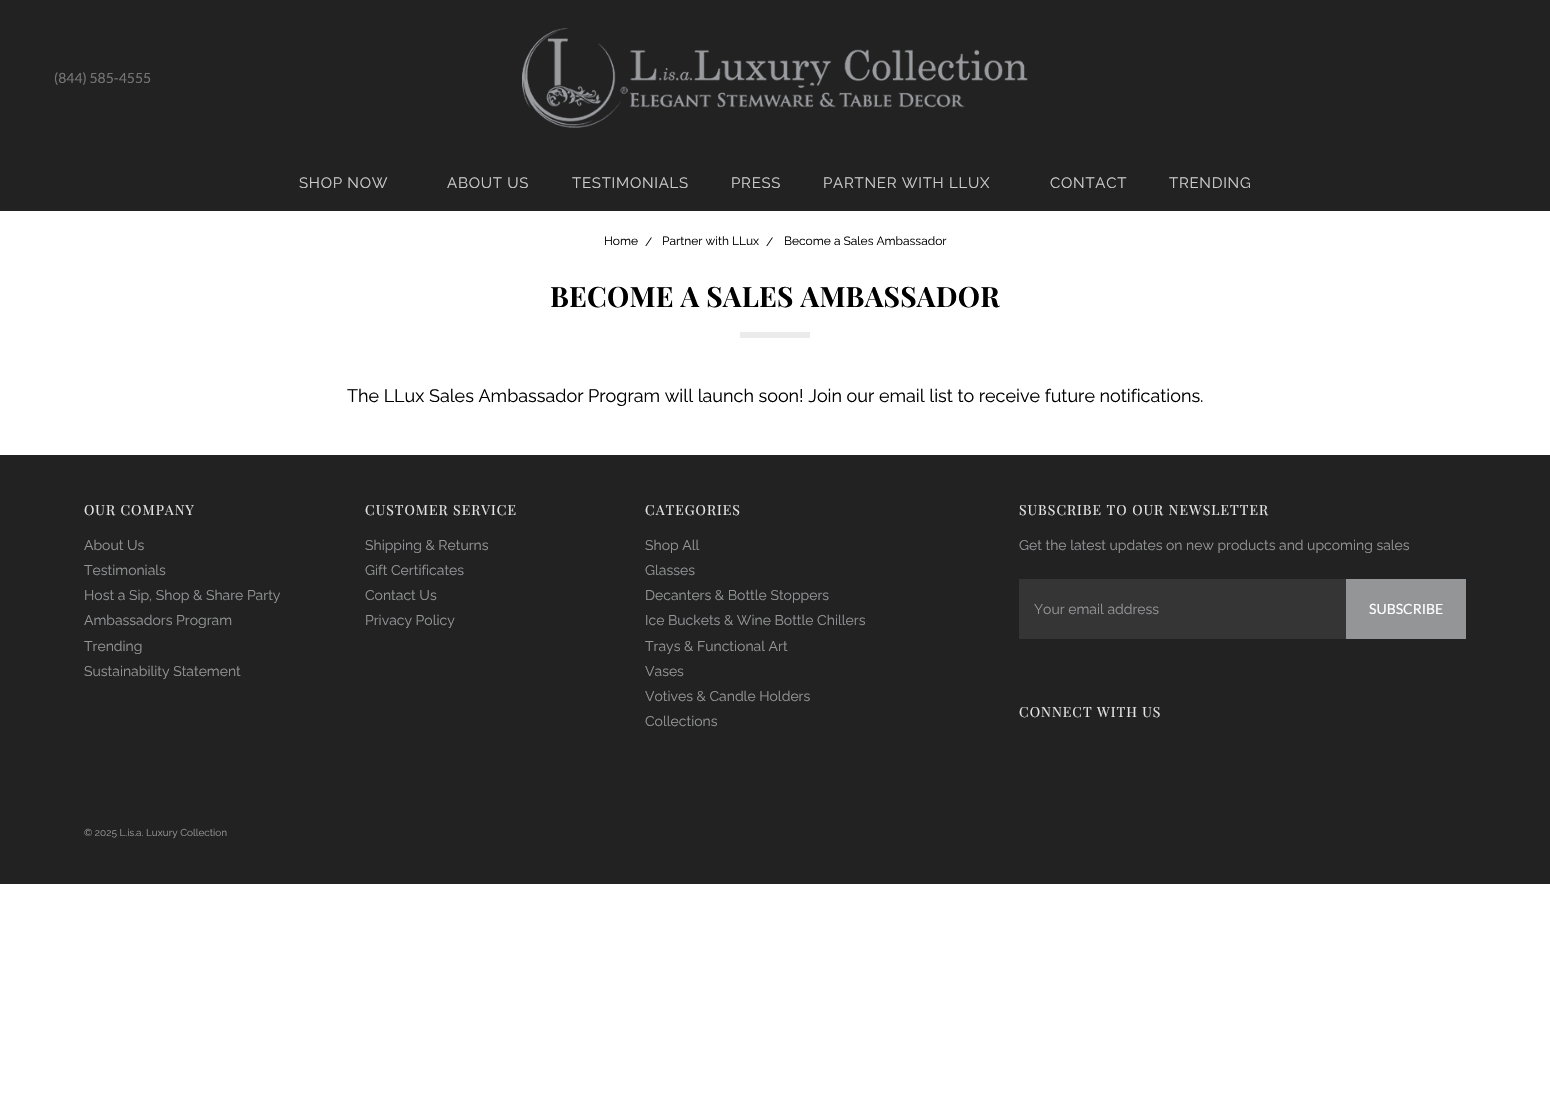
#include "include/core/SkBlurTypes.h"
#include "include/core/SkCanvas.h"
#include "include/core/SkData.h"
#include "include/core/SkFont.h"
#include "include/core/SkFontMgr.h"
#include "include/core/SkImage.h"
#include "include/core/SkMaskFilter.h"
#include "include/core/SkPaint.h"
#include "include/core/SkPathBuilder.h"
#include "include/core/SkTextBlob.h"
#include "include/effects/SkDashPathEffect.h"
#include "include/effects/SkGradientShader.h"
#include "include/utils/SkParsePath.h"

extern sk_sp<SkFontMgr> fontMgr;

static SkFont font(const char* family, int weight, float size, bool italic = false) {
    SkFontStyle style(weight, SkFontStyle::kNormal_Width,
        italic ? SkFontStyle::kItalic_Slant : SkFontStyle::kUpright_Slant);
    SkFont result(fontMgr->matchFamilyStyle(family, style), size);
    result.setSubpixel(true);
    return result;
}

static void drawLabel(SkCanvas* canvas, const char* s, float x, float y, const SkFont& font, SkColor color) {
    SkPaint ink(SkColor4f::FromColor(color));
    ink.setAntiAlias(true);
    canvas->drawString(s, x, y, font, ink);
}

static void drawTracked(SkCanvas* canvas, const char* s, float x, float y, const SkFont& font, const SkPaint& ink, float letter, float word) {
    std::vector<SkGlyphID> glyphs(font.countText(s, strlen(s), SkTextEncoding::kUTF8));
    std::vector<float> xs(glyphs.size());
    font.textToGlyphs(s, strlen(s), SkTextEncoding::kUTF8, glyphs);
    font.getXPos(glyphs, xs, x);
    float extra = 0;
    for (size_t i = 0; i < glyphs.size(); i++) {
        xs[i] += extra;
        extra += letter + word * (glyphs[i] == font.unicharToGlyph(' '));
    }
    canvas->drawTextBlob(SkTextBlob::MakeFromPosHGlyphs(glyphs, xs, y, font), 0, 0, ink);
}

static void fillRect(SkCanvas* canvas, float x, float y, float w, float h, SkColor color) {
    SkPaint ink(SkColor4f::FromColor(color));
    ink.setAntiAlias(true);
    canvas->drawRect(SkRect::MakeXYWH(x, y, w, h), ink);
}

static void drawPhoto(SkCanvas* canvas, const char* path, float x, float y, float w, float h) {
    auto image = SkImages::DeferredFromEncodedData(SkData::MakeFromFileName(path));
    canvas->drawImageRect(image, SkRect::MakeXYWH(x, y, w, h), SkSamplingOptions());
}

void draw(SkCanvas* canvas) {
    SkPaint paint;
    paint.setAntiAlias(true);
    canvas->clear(0xFFFFFFFF);
    fillRect(canvas, 0, 0, 1550, 211, 0xFF222222);
    SkFont font1 = font("Lato", 400, 14);
    drawLabel(canvas, "(844) 585-4555", 54, 83, font1, 0xFF757575);
    drawPhoto(canvas, "assets/img1.png", 522, 28, 506, 100);
    SkFont font2 = font("Raleway", 400, 15);
    paint.setColor(0xFFCCCCCC);
    drawTracked(canvas, "SHOP NOW", 299, 188, font2, paint, 0.75f, 0);
    drawTracked(canvas, "ABOUT US", 447, 188, font2, paint, 0.75f, 0);
    drawTracked(canvas, "TESTIMONIALS", 572, 188, font2, paint, 0.75f, 0);
    drawTracked(canvas, "PRESS", 731, 188, font2, paint, 0.75f, 0);
    drawTracked(canvas, "PARTNER WITH LLUX", 823, 188, font2, paint, 0.75f, 0);
    drawTracked(canvas, "CONTACT", 1050, 188, font2, paint, 0.75f, 0);
    drawTracked(canvas, "TRENDING", 1169, 188, font2, paint, 0.75f, 0);
    SkFont font3 = font("Raleway", 400, 12);
    drawLabel(canvas, "Home", 604, 245, font3, 0xFF000000);
    drawLabel(canvas, "/", 645, 246, font3, 0xFF000000);
    drawLabel(canvas, "Partner with LLux", 662, 245, font3, 0xFF000000);
    drawLabel(canvas, "/", 766, 246, font3, 0xFF000000);
    drawLabel(canvas, "Become a Sales Ambassador", 784, 245, font3, 0xFF000000);
    SkFont font4 = font("Playfair Display", 700, 28);
    paint.setColor(0xFF000000);
    drawTracked(canvas, "BECOME A SALES AMBASSADOR", 550, 307, font4, paint, 0.25f, 0);
    fillRect(canvas, 740, 332, 70, 6, 0xFFEBEBEB);
    SkFont font5 = font("Raleway", 400, 18);
    drawLabel(canvas, "The LLux Sales Ambassador Program will launch soon! Join our email list to receive future notifications.", 347, 402, font5, 0xFF000000);
    fillRect(canvas, 0, 455, 1550, 429, 0xFF222222);
    SkFont font6 = font("Playfair Display", 400, 14);
    paint.setColor(0xFFE5E5E5);
    drawTracked(canvas, "OUR COMPANY", 84, 515, font6, paint, 1, 0);
    SkFont font7 = font("Raleway", 400, 14);
    drawLabel(canvas, "About Us", 84, 550, font7, 0xFF949597);
    drawLabel(canvas, "Testimonials", 84, 575, font7, 0xFF949597);
    drawLabel(canvas, "Host a Sip, Shop & Share Party", 84, 600, font7, 0xFF949597);
    drawLabel(canvas, "Ambassadors Program", 84, 625, font7, 0xFF949597);
    drawLabel(canvas, "Trending", 84, 651, font7, 0xFF949597);
    drawLabel(canvas, "Sustainability Statement", 84, 676, font7, 0xFF949597);
    drawTracked(canvas, "CUSTOMER SERVICE", 365, 515, font6, paint, 1, 0);
    drawLabel(canvas, "Shipping & Returns", 365, 550, font7, 0xFF949597);
    drawLabel(canvas, "Gift Certificates", 365, 575, font7, 0xFF949597);
    drawLabel(canvas, "Contact Us", 365, 600, font7, 0xFF949597);
    drawLabel(canvas, "Privacy Policy", 365, 625, font7, 0xFF949597);
    drawTracked(canvas, "CATEGORIES", 645, 515, font6, paint, 1, 0);
    drawLabel(canvas, "Shop All", 645, 550, font7, 0xFF949597);
    drawLabel(canvas, "Glasses", 645, 575, font7, 0xFF949597);
    drawLabel(canvas, "Decanters & Bottle Stoppers", 645, 600, font7, 0xFF949597);
    drawLabel(canvas, "Ice Buckets & Wine Bottle Chillers", 645, 625, font7, 0xFF949597);
    drawLabel(canvas, "Trays & Functional Art", 645, 651, font7, 0xFF949597);
    drawLabel(canvas, "Vases", 645, 676, font7, 0xFF949597);
    drawLabel(canvas, "Votives & Candle Holders", 645, 701, font7, 0xFF949597);
    drawLabel(canvas, "Collections", 645, 726, font7, 0xFF949597);
    drawTracked(canvas, "SUBSCRIBE TO OUR NEWSLETTER", 1019, 515, font6, paint, 1, 0);
    drawLabel(canvas, "Get the latest updates on new products and upcoming sales", 1019, 550, font7, 0xFF949597);
    fillRect(canvas, 1019, 579, 327, 60, 0xFF353535);
    drawLabel(canvas, "Your email address", 1034, 614, font7, 0xFF949597);
    fillRect(canvas, 1346, 579, 120, 60, 0xFF949597);
    drawLabel(canvas, "SUBSCRIBE", 1369, 614, font1, 0xFFFFFFFF);
    drawTracked(canvas, "CONNECT WITH US", 1019, 717, font6, paint, 1, 0);
    SkFont font8 = font("Raleway", 400, 10);
    drawLabel(canvas, "© 2025 L.is.a. Luxury Collection", 84, 836, font8, 0xFF949597);
}
